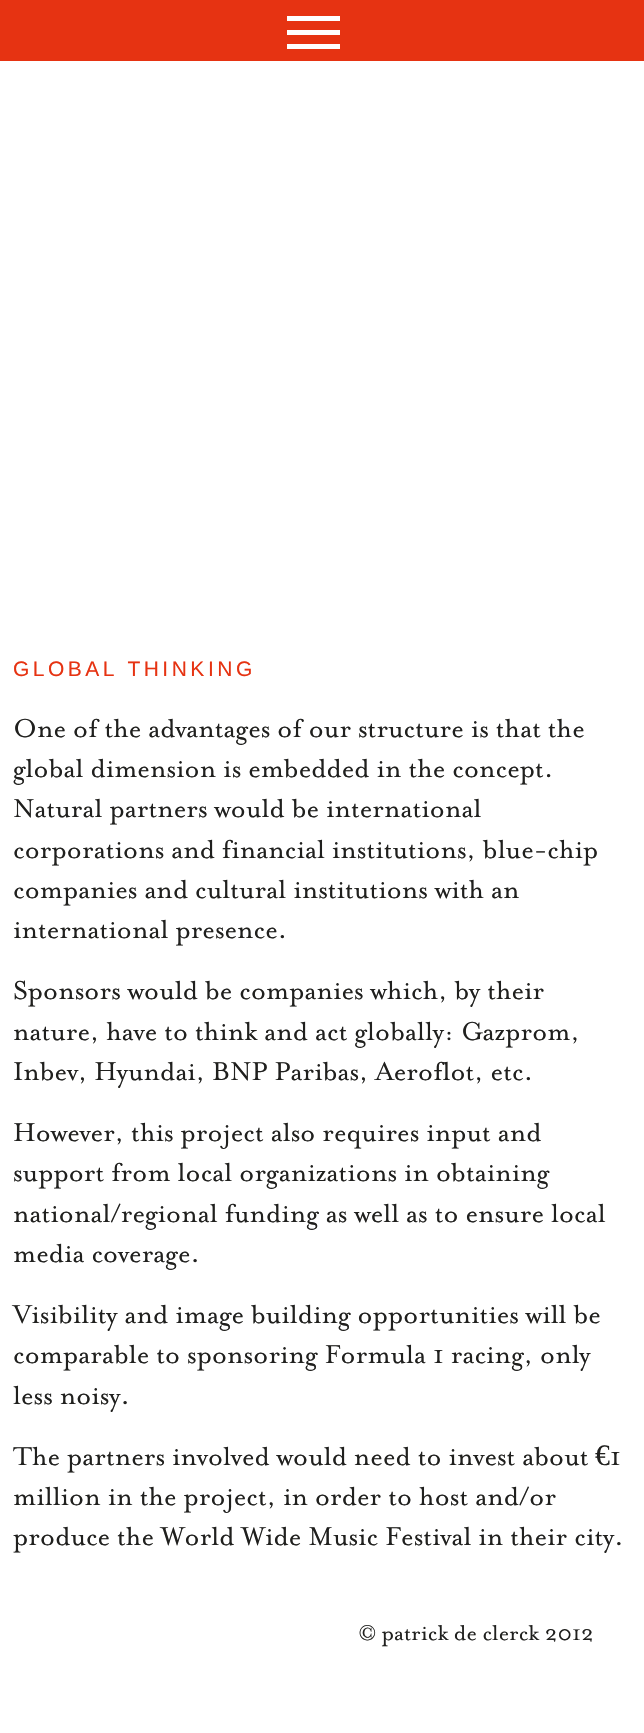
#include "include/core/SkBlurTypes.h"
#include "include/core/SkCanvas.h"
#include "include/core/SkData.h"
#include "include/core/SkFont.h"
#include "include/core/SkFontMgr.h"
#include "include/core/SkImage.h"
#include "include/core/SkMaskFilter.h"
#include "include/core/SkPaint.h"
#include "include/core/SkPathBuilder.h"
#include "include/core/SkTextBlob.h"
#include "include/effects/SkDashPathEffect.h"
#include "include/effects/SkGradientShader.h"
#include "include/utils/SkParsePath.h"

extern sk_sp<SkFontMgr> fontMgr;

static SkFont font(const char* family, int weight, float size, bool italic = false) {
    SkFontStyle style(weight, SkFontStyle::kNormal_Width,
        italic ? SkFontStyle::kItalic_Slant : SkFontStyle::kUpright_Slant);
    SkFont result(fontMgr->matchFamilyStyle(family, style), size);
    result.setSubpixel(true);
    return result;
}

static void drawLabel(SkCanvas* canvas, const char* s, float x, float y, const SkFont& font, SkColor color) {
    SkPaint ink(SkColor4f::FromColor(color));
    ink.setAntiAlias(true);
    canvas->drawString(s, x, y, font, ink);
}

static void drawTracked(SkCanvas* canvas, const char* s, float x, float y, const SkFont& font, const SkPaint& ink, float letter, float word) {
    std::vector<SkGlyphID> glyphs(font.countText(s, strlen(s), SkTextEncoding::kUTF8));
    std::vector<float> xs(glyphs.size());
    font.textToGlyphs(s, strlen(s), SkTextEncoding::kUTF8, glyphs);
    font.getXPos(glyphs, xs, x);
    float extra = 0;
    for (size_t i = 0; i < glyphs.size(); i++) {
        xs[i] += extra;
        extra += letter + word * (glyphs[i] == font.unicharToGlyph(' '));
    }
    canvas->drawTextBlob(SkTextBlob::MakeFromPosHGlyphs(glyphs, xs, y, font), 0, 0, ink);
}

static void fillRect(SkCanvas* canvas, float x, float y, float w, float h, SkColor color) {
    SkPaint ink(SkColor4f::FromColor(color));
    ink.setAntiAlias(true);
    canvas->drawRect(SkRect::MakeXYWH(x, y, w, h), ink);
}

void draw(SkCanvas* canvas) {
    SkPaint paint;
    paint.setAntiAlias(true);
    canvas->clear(0xFFFFFFFF);
    fillRect(canvas, 0, 0, 644, 61, 0xFFE63312);
    fillRect(canvas, 287, 16, 53, 5, 0xFFFFFFFF);
    fillRect(canvas, 287, 30, 53, 5, 0xFFFFFFFF);
    fillRect(canvas, 287, 44, 53, 5, 0xFFFFFFFF);
    SkFont font1 = font("Liberation Sans", 400, 21);
    paint.setColor(0xFFE63312);
    drawTracked(canvas, "GLOBAL THINKING", 13, 676, font1, paint, 3.5f, 0);
    SkFont font2 = font("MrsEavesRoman", 400, 29.75f);
    drawLabel(canvas, "One of the advantages of our structure is that the", 13, 737, font2, 0xFF20201E);
    drawLabel(canvas, "global dimension is embedded in the concept.", 13, 777, font2, 0xFF20201E);
    drawLabel(canvas, "Natural partners would be international", 13, 817, font2, 0xFF20201E);
    drawLabel(canvas, "corporations and financial institutions, blue-chip", 13, 858, font2, 0xFF20201E);
    drawLabel(canvas, "companies and cultural institutions with an", 13, 898, font2, 0xFF20201E);
    drawLabel(canvas, "international presence.", 13, 938, font2, 0xFF20201E);
    drawLabel(canvas, "Sponsors would be companies which, by their", 13, 999, font2, 0xFF20201E);
    drawLabel(canvas, "nature, have to think and act globally: Gazprom,", 13, 1040, font2, 0xFF20201E);
    drawLabel(canvas, "Inbev, Hyundai, BNP Paribas, Aeroflot, etc.", 13, 1080, font2, 0xFF20201E);
    drawLabel(canvas, "However, this project also requires input and", 13, 1141, font2, 0xFF20201E);
    drawLabel(canvas, "support from local organizations in obtaining", 13, 1181, font2, 0xFF20201E);
    drawLabel(canvas, "national/regional funding as well as to ensure local", 13, 1222, font2, 0xFF20201E);
    drawLabel(canvas, "media coverage.", 13, 1262, font2, 0xFF20201E);
    drawLabel(canvas, "Visibility and image building opportunities will be", 13, 1323, font2, 0xFF20201E);
    drawLabel(canvas, "comparable to sponsoring Formula 1 racing, only", 13, 1363, font2, 0xFF20201E);
    drawLabel(canvas, "less noisy.", 13, 1404, font2, 0xFF20201E);
    drawLabel(canvas, "The partners involved would need to invest about", 13, 1465, font2, 0xFF20201E);
    SkFont font3 = font("Liberation Serif", 400, 29.75f);
    drawLabel(canvas, "€", 595, 1465, font3, 0xFF20201E);
    drawLabel(canvas, "1", 610, 1465, font2, 0xFF20201E);
    drawLabel(canvas, "million in the project, in order to host and/or", 13, 1505, font2, 0xFF20201E);
    drawLabel(canvas, "produce the World Wide Music Festival in their city.", 13, 1545, font2, 0xFF20201E);
    SkFont font4 = font("MrsEavesRoman", 400, 24.5f);
    drawLabel(canvas, "© patrick de clerck 2012", 359, 1640, font4, 0xFF20201E);
}
